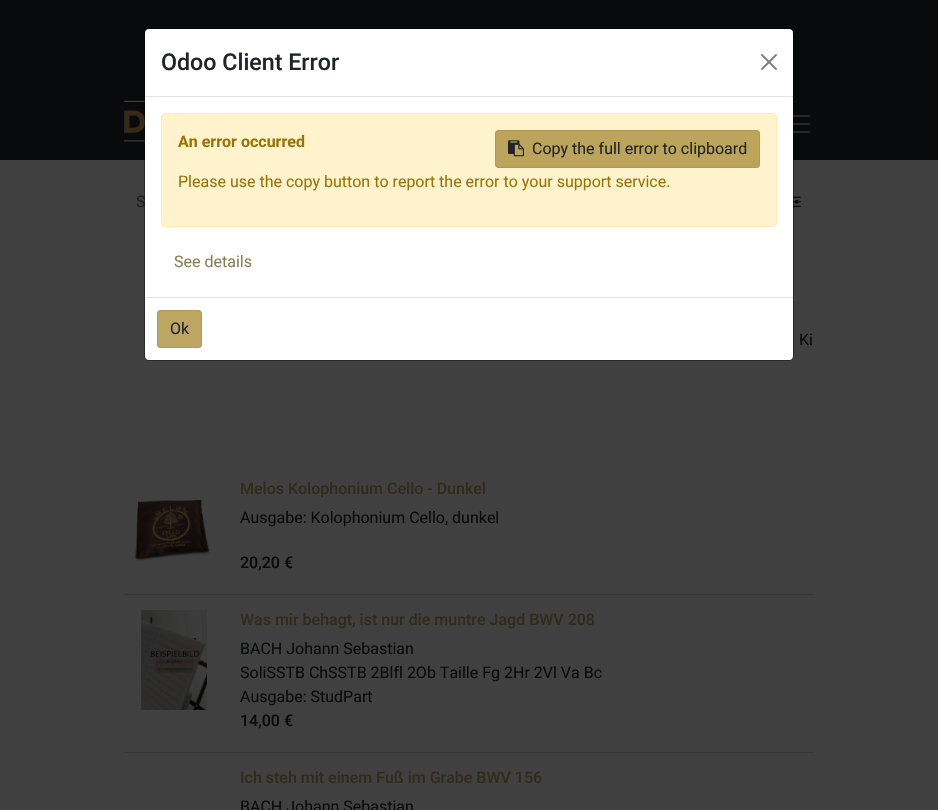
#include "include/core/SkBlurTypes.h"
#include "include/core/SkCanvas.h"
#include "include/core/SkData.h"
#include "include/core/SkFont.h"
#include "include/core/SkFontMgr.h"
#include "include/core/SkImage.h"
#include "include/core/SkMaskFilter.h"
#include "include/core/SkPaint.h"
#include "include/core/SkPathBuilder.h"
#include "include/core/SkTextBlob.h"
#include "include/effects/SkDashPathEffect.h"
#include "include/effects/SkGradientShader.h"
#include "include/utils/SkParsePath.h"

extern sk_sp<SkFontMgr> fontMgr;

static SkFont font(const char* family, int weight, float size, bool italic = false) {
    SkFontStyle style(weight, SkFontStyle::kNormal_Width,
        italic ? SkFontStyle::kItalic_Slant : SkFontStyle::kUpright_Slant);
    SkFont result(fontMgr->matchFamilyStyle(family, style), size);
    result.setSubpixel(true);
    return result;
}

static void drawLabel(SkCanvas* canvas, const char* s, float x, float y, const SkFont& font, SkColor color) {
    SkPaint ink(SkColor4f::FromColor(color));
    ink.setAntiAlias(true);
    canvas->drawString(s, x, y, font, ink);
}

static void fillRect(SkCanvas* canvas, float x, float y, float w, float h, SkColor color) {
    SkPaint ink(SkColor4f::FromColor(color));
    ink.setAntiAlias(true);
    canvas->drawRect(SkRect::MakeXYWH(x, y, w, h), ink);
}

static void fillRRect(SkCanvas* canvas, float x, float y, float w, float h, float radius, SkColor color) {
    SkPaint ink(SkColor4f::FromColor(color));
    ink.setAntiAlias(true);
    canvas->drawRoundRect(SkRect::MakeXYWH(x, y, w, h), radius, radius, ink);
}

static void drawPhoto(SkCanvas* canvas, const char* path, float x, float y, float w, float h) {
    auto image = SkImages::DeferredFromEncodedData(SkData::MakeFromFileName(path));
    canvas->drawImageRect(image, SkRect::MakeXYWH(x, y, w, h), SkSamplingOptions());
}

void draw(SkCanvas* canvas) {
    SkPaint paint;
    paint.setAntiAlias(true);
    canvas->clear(0xFF404040);
    fillRect(canvas, 0, 0, 938, 160, 0xFF090A0B);
    drawPhoto(canvas, "assets/img3.png", 124, 100, 21, 42);
    drawPhoto(canvas, "assets/img4.png", 793, 115, 17, 18);
    SkFont font1 = font("Roboto", 400, 16);
    drawLabel(canvas, "S", 136, 207, font1, 0xFF1B1E20);
    drawPhoto(canvas, "assets/img5.png", 793, 196, 8, 13);
    paint.setStroke(true);
    paint.setStrokeWidth(1);
    paint.setColor(0x33000000);
    canvas->drawRoundRect(SkRect::MakeXYWH(144.5f, 28.5f, 649, 332), 4.5f, 4.5f, paint);
    fillRRect(canvas, 145, 29, 648, 331, 4, 0xFFFFFFFF);
    canvas->drawRoundRect(SkRect::MakeXYWH(144.5f, 28.5f, 649, 332), 4.5f, 4.5f, paint);
    fillRect(canvas, 145, 96, 648, 1, 0xFFDEE2E6);
    SkFont font2 = font("Roboto", 500, 23.25f);
    drawLabel(canvas, "Odoo Client Error", 161, 70, font2, 0xFF212529);
    drawPhoto(canvas, "assets/img1.png", 761, 54, 16, 16);
    paint.setStroke(false);
    paint.setColor(0xFFFFF3CD);
    canvas->drawRoundRect(SkRect::MakeXYWH(161.5f, 113.5f, 615, 113), 3.5f, 3.5f, paint);
    paint.setStroke(true);
    paint.setColor(0xFFFFECB5);
    canvas->drawRoundRect(SkRect::MakeXYWH(161.5f, 113.5f, 615, 113), 3.5f, 3.5f, paint);
    SkFont font3 = font("Roboto", 700, 16);
    drawLabel(canvas, "An error occurred", 178, 147, font3, 0xFF997404);
    fillRRect(canvas, 495, 130, 265, 38, 4, 0xFFBCA45B);
    paint.setColor(0xDBB19748);
    canvas->drawRoundRect(SkRect::MakeXYWH(495.5f, 130.5f, 264, 37), 3.5f, 3.5f, paint);
    drawPhoto(canvas, "assets/img2.png", 508, 140, 16, 17);
    drawLabel(canvas, "Copy the full error to clipboard", 532, 154, font1, 0xFF212529);
    drawLabel(canvas, "Please use the copy button to report the error to your support service.", 178, 187, font1, 0xFF997404);
    drawLabel(canvas, "See details", 174, 267, font1, 0xFF8D7E4F);
    fillRect(canvas, 145, 297, 648, 1, 0xFFDEE2E6);
    fillRRect(canvas, 157, 310, 45, 38, 4, 0xFFBCA662);
    canvas->drawRoundRect(SkRect::MakeXYWH(157.5f, 310.5f, 44, 37), 3.5f, 3.5f, paint);
    drawLabel(canvas, "Ok", 170, 334, font1, 0xFF212529);
    drawLabel(canvas, "Ki", 799, 345, font1, 0xFF090A0B);
    fillRect(canvas, 124, 594, 690, 1, 0xFF383838);
    drawPhoto(canvas, "assets/img6.png", 134, 499, 77, 62);
    SkFont font4 = font("Roboto", 500, 16);
    drawLabel(canvas, "Melos Kolophonium Cello - Dunkel", 240, 494, font4, 0xFF2F2A19);
    drawLabel(canvas, "Ausgabe: Kolophonium Cello, dunkel", 240, 523, font1, 0xFF090A0B);
    drawLabel(canvas, "20,20 €", 240, 568, font4, 0xFF090A0B);
    fillRect(canvas, 124, 752, 690, 1, 0xFF383838);
    drawPhoto(canvas, "assets/img7.png", 141, 610, 66, 100);
    drawLabel(canvas, "Was mir behagt, ist nur die muntre Jagd BWV 208", 240, 625, font4, 0xFF2F2A19);
    drawLabel(canvas, "BACH Johann Sebastian", 240, 654, font1, 0xFF090A0B);
    drawLabel(canvas, "SoliSSTB ChSSTB 2Blfl 2Ob Taille Fg 2Hr 2Vl Va Bc", 240, 678, font1, 0xFF090A0B);
    drawLabel(canvas, "Ausgabe: StudPart", 240, 702, font1, 0xFF090A0B);
    drawLabel(canvas, "14,00 €", 240, 726, font4, 0xFF090A0B);
    drawLabel(canvas, "Ich steh mit einem Fuß im Grabe BWV 156", 240, 783, font4, 0xFF2F2A19);
    drawLabel(canvas, "BACH Johann Sebastian", 240, 812, font1, 0xFF090A0B);
}
